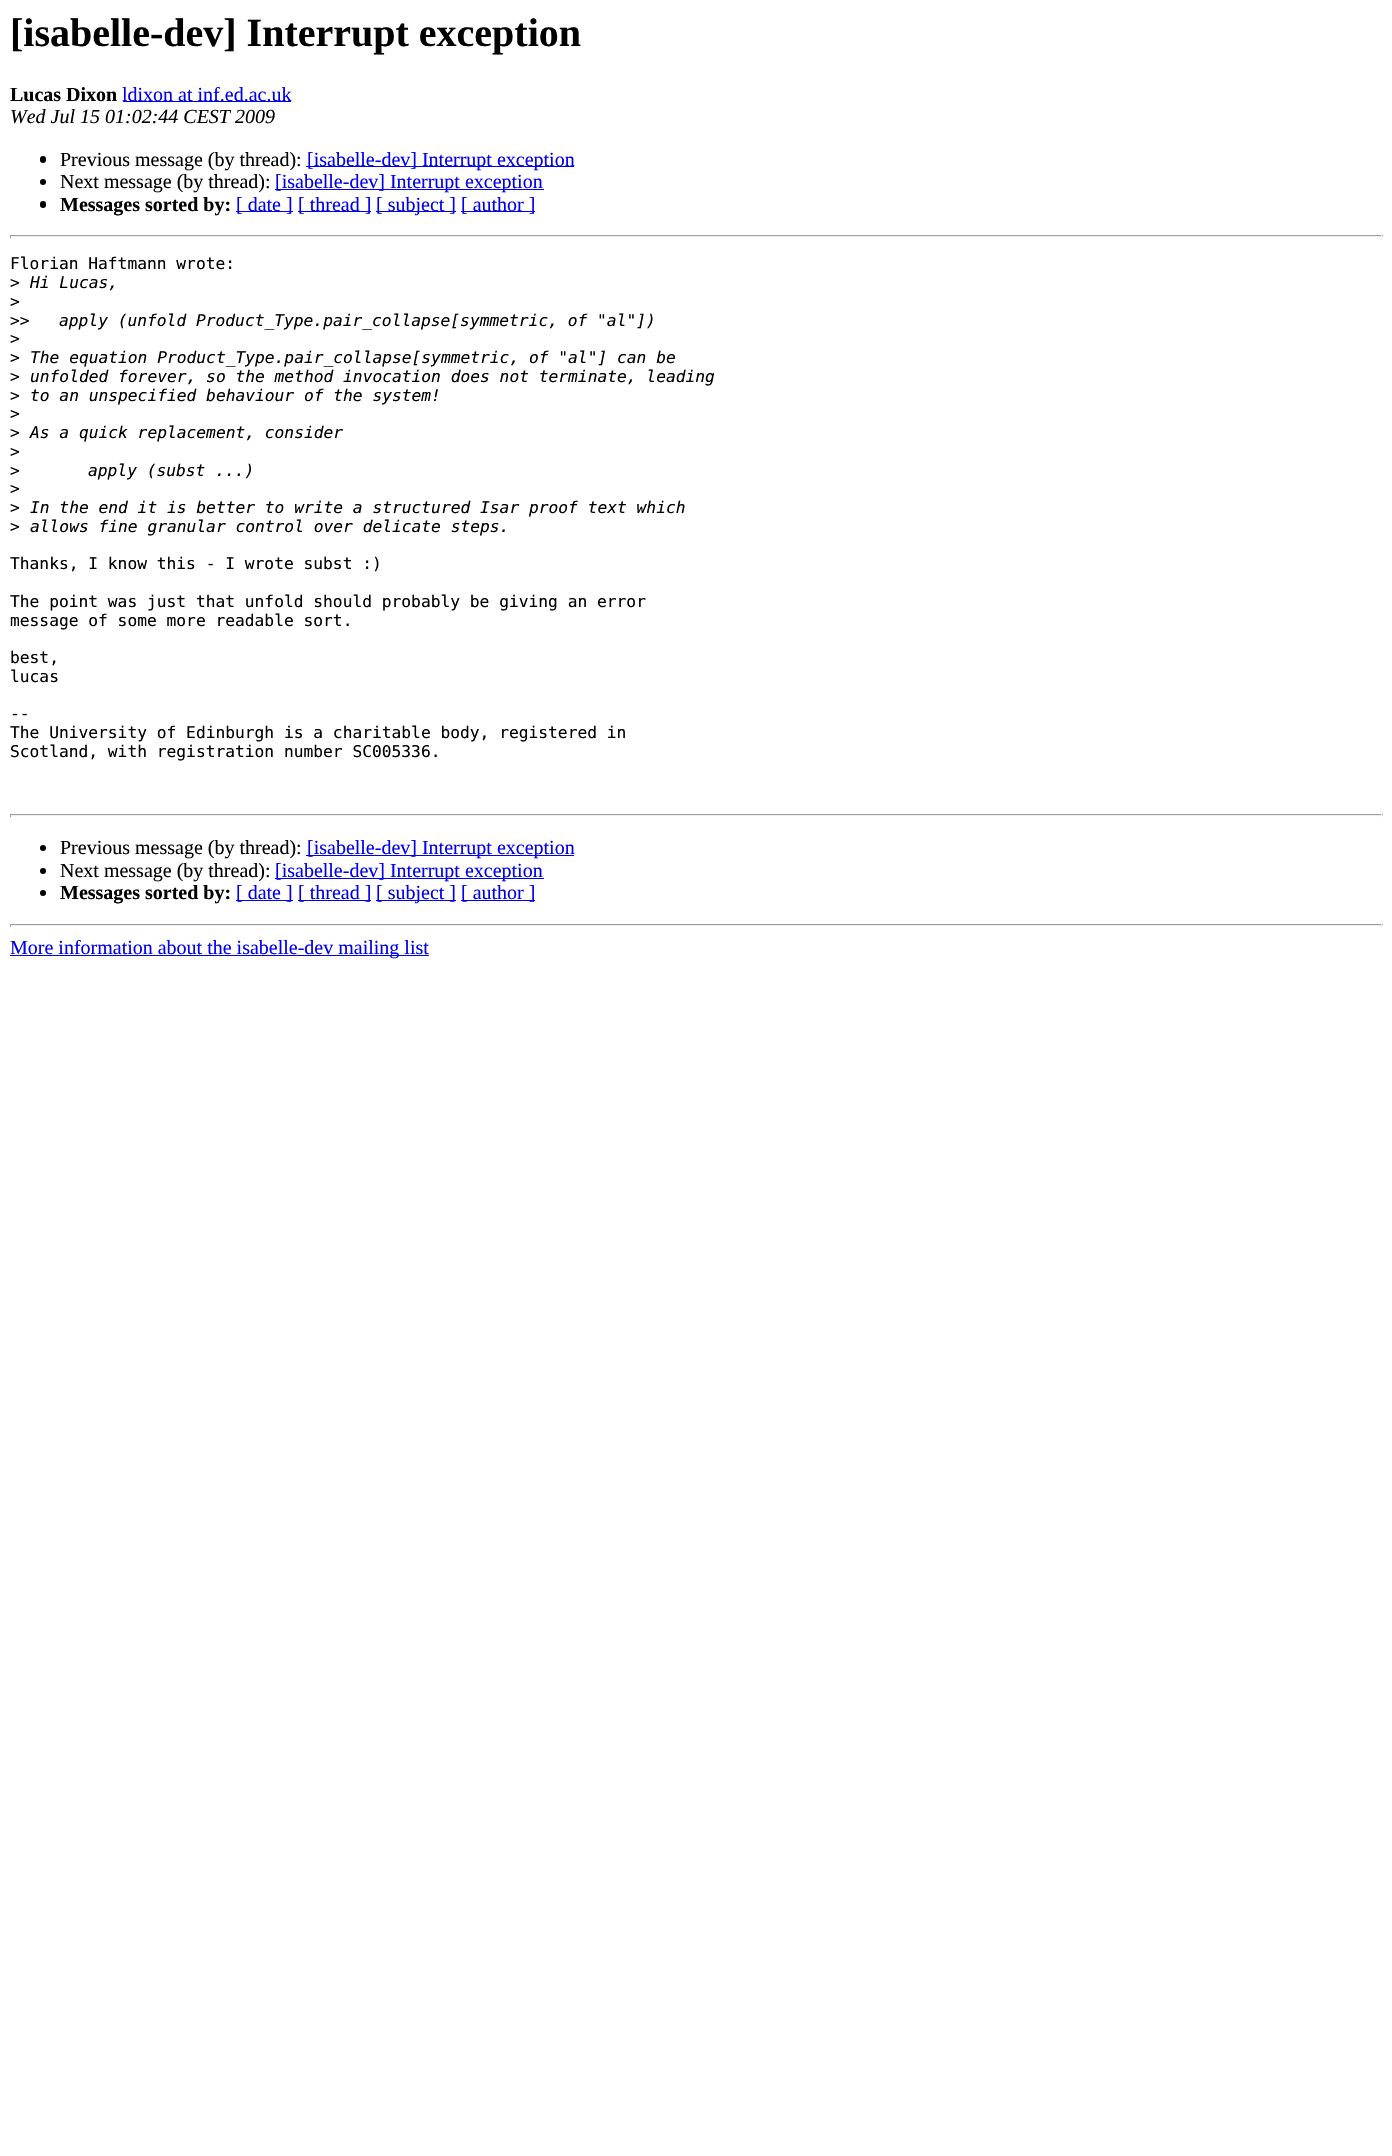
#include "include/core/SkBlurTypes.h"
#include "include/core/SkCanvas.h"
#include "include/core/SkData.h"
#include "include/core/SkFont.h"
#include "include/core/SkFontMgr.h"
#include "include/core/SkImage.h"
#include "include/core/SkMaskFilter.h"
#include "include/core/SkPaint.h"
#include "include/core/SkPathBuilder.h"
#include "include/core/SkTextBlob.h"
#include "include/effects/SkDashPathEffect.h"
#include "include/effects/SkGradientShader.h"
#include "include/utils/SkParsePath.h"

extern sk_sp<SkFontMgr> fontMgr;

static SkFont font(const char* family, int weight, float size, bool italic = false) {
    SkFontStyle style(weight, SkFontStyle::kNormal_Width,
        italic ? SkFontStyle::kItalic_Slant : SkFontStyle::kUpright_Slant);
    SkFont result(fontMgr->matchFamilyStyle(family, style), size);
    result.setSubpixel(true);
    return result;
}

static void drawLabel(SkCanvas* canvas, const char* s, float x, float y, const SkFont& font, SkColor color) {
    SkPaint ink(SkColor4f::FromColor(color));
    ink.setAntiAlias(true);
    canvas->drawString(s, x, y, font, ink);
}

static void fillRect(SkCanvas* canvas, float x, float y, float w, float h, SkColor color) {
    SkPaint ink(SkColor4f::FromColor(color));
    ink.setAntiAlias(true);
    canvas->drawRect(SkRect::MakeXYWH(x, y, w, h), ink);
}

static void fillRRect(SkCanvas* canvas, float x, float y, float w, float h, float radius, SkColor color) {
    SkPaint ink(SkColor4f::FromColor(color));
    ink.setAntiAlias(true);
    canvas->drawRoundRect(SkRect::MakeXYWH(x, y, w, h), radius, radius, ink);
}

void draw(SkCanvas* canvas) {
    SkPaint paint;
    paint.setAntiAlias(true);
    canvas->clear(0xFFFFFFFF);
    SkFont font1 = font("Liberation Serif", 700, 40);
    drawLabel(canvas, "[isabelle-dev] Interrupt exception", 10, 46, font1, 0xFF000000);
    SkFont font2 = font("Liberation Serif", 700, 20);
    drawLabel(canvas, "Lucas Dixon", 10, 101, font2, 0xFF000000);
    fillRect(canvas, 123, 101, 168, 1, 0xFF0000EE);
    SkFont font3 = font("Liberation Serif", 400, 20);
    drawLabel(canvas, "ldixon at inf.ed.ac.uk", 122, 101, font3, 0xFF0000EE);
    SkFont font4 = font("Liberation Serif", 400, 20, true);
    drawLabel(canvas, "Wed Jul 15 01:02:44 CEST 2009", 10, 123, font4, 0xFF000000);
    fillRRect(canvas, 40, 156, 6, 7, 3, 0xFF000000);
    drawLabel(canvas, "Previous message (by thread):", 60, 166, font3, 0xFF000000);
    fillRect(canvas, 306, 166, 268, 1, 0xFF0000EE);
    drawLabel(canvas, "[isabelle-dev] Interrupt exception", 307, 166, font3, 0xFF0000EE);
    paint.setColor(0xFF000000);
    canvas->drawCircle(43, 182, 3, paint);
    drawLabel(canvas, "Next message (by thread):", 60, 188, font3, 0xFF000000);
    fillRect(canvas, 275, 189, 269, 1, 0xFF0000EE);
    drawLabel(canvas, "[isabelle-dev] Interrupt exception", 275, 188, font3, 0xFF0000EE);
    fillRRect(canvas, 40, 201, 6, 7, 3, 0xFF000000);
    drawLabel(canvas, "Messages sorted by:", 60, 211, font2, 0xFF000000);
    fillRect(canvas, 236, 211, 57, 1, 0xFF0000EE);
    drawLabel(canvas, "[ date ]", 236, 211, font3, 0xFF0000EE);
    fillRect(canvas, 298, 211, 73, 1, 0xFF0000EE);
    drawLabel(canvas, "[ thread ]", 298, 211, font3, 0xFF0000EE);
    fillRect(canvas, 376, 211, 80, 1, 0xFF0000EE);
    drawLabel(canvas, "[ subject ]", 376, 211, font3, 0xFF0000EE);
    fillRect(canvas, 461, 211, 74, 1, 0xFF0000EE);
    drawLabel(canvas, "[ author ]", 461, 211, font3, 0xFF0000EE);
    fillRect(canvas, 10, 235, 1373, 1, 0xFF9F9F9F);
    fillRect(canvas, 1381, 235, 1, 3, 0xFFEEEEEE);
    fillRect(canvas, 10, 236, 1373, 1, 0xFFEEEEEE);
    fillRect(canvas, 10, 235, 1, 3, 0xFF9F9F9F);
    SkFont font5 = font("DejaVu Sans Mono", 400, 16.25f);
    drawLabel(canvas, "Florian Haftmann wrote:", 10, 269, font5, 0xFF000000);
    drawLabel(canvas, ">", 10, 288, font5, 0xFF000000);
    SkFont font6 = font("DejaVu Sans Mono", 400, 16.25f, true);
    drawLabel(canvas, "Hi Lucas,", 30, 288, font6, 0xFF000000);
    drawLabel(canvas, ">", 10, 307, font5, 0xFF000000);
    drawLabel(canvas, ">>", 10, 326, font5, 0xFF000000);
    drawLabel(canvas, "apply (unfold Product_Type.pair_collapse[symmetric, of \"al\"])", 59, 326, font6, 0xFF000000);
    drawLabel(canvas, ">", 10, 344, font5, 0xFF000000);
    drawLabel(canvas, ">", 10, 363, font5, 0xFF000000);
    drawLabel(canvas, "The equation Product_Type.pair_collapse[symmetric, of \"al\"] can be", 30, 363, font6, 0xFF000000);
    drawLabel(canvas, ">", 10, 382, font5, 0xFF000000);
    drawLabel(canvas, "unfolded forever, so the method invocation does not terminate, leading", 30, 382, font6, 0xFF000000);
    drawLabel(canvas, ">", 10, 401, font5, 0xFF000000);
    drawLabel(canvas, "to an unspecified behaviour of the system!", 30, 401, font6, 0xFF000000);
    drawLabel(canvas, ">", 10, 419, font5, 0xFF000000);
    drawLabel(canvas, ">", 10, 438, font5, 0xFF000000);
    drawLabel(canvas, "As a quick replacement, consider", 30, 438, font6, 0xFF000000);
    drawLabel(canvas, ">", 10, 457, font5, 0xFF000000);
    drawLabel(canvas, ">", 10, 476, font5, 0xFF000000);
    drawLabel(canvas, "apply (subst ...)", 88, 476, font6, 0xFF000000);
    drawLabel(canvas, ">", 10, 494, font5, 0xFF000000);
    drawLabel(canvas, ">", 10, 513, font5, 0xFF000000);
    drawLabel(canvas, "In the end it is better to write a structured Isar proof text which", 30, 513, font6, 0xFF000000);
    drawLabel(canvas, ">", 10, 532, font5, 0xFF000000);
    drawLabel(canvas, "allows fine granular control over delicate steps.", 30, 532, font6, 0xFF000000);
    drawLabel(canvas, "Thanks, I know this - I wrote subst :)", 10, 569, font5, 0xFF000000);
    drawLabel(canvas, "The point was just that unfold should probably be giving an error", 10, 607, font5, 0xFF000000);
    drawLabel(canvas, "message of some more readable sort.", 10, 626, font5, 0xFF000000);
    drawLabel(canvas, "best,", 10, 663, font5, 0xFF000000);
    drawLabel(canvas, "lucas", 10, 682, font5, 0xFF000000);
    drawLabel(canvas, "--", 10, 719, font5, 0xFF000000);
    drawLabel(canvas, "The University of Edinburgh is a charitable body, registered in", 10, 738, font5, 0xFF000000);
    drawLabel(canvas, "Scotland, with registration number SC005336.", 10, 757, font5, 0xFF000000);
    fillRect(canvas, 10, 814, 1373, 1, 0xFF9F9F9F);
    fillRect(canvas, 1381, 814, 1, 3, 0xFFEEEEEE);
    fillRect(canvas, 10, 815, 1373, 1, 0xFFEEEEEE);
    fillRect(canvas, 10, 814, 1, 3, 0xFF9F9F9F);
    canvas->drawCircle(43, 848, 3, paint);
    drawLabel(canvas, "Previous message (by thread):", 60, 854, font3, 0xFF000000);
    fillRect(canvas, 306, 855, 268, 1, 0xFF0000EE);
    drawLabel(canvas, "[isabelle-dev] Interrupt exception", 307, 854, font3, 0xFF0000EE);
    canvas->drawCircle(43, 871, 3, paint);
    drawLabel(canvas, "Next message (by thread):", 60, 877, font3, 0xFF000000);
    fillRect(canvas, 275, 878, 269, 1, 0xFF0000EE);
    drawLabel(canvas, "[isabelle-dev] Interrupt exception", 275, 877, font3, 0xFF0000EE);
    canvas->drawCircle(43, 893, 3, paint);
    drawLabel(canvas, "Messages sorted by:", 60, 899, font2, 0xFF000000);
    fillRect(canvas, 236, 900, 57, 1, 0xFF0000EE);
    drawLabel(canvas, "[ date ]", 236, 899, font3, 0xFF0000EE);
    fillRect(canvas, 298, 900, 73, 1, 0xFF0000EE);
    drawLabel(canvas, "[ thread ]", 298, 899, font3, 0xFF0000EE);
    fillRect(canvas, 376, 900, 80, 1, 0xFF0000EE);
    drawLabel(canvas, "[ subject ]", 376, 899, font3, 0xFF0000EE);
    fillRect(canvas, 461, 900, 74, 1, 0xFF0000EE);
    drawLabel(canvas, "[ author ]", 461, 899, font3, 0xFF0000EE);
    fillRect(canvas, 10, 924, 1373, 1, 0xFF9F9F9F);
    fillRect(canvas, 1381, 924, 1, 3, 0xFFEEEEEE);
    fillRect(canvas, 10, 925, 1373, 1, 0xFFEEEEEE);
    fillRect(canvas, 10, 924, 1, 3, 0xFF9F9F9F);
    fillRect(canvas, 10, 955, 419, 1, 0xFF0000EE);
    drawLabel(canvas, "More information about the isabelle-dev mailing list", 10, 954, font3, 0xFF0000EE);
}
